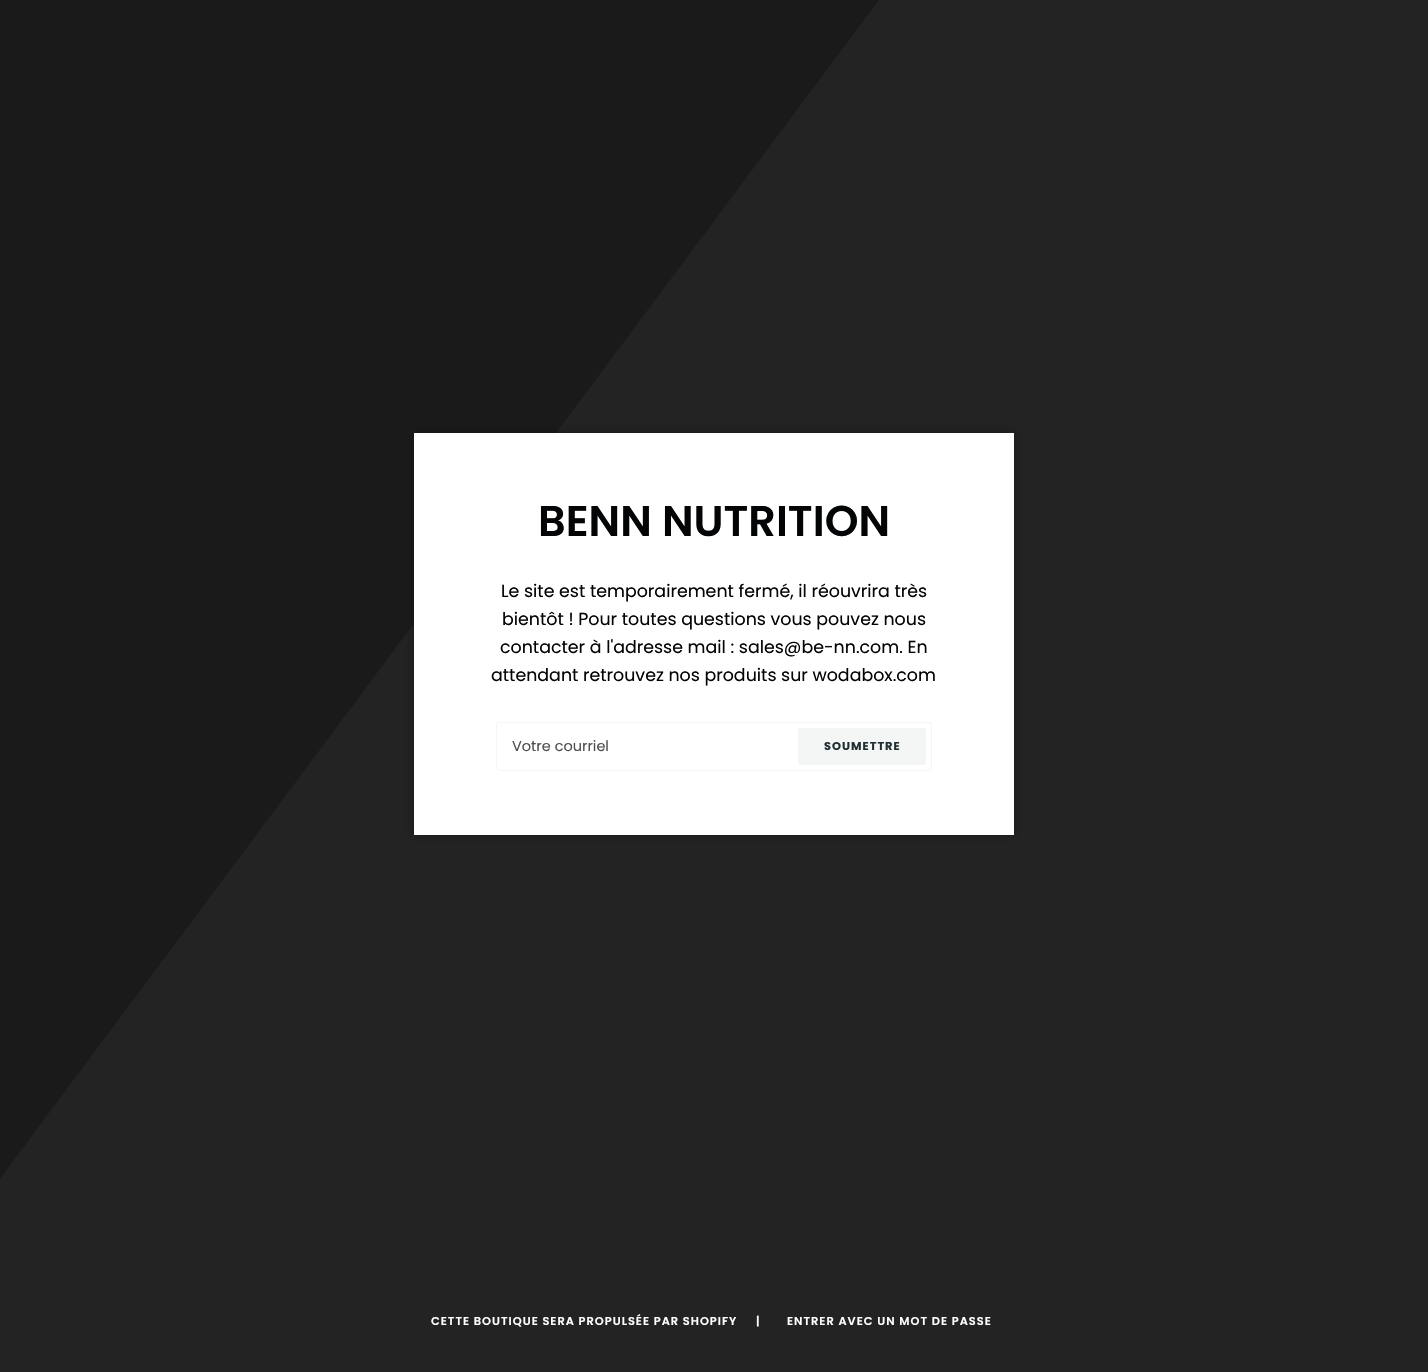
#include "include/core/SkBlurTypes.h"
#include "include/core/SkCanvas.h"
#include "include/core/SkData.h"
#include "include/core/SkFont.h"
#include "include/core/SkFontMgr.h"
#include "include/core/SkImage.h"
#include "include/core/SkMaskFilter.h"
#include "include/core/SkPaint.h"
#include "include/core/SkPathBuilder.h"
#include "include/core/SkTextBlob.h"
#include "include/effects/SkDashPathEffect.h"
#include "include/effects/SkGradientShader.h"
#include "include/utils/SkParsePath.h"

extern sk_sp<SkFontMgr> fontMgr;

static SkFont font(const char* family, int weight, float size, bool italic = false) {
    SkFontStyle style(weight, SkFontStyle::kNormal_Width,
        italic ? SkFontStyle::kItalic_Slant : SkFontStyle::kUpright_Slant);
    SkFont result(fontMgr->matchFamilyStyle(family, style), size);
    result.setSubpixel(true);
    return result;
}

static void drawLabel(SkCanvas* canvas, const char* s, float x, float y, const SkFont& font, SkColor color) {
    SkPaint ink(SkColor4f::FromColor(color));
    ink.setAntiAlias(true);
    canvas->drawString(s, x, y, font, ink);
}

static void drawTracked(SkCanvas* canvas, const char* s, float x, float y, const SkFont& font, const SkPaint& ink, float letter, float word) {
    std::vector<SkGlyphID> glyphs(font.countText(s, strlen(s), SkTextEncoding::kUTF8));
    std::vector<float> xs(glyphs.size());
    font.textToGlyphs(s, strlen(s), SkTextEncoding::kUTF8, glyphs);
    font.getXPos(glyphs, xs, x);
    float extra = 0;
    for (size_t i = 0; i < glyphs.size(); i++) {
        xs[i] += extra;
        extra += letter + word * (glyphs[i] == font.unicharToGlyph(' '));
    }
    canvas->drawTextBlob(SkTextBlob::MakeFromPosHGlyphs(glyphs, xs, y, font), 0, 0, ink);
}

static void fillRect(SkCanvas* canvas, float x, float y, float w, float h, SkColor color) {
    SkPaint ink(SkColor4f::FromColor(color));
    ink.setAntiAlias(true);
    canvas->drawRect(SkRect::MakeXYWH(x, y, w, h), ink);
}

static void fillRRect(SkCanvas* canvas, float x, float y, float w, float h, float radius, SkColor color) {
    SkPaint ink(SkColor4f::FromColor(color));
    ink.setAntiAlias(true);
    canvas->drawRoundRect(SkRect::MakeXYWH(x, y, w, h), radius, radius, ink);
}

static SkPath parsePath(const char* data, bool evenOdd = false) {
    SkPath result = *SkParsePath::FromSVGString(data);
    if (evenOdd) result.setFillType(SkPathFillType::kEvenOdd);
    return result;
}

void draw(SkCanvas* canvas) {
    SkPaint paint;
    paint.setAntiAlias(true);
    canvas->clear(0xFF1A1A1A);
    paint.setColor(0xFF232323);
    canvas->drawPath(parsePath("M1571 1372H-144L879 0H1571Z"), paint);
    paint.setColor(0x4D000000);
    paint.setMaskFilter(SkMaskFilter::MakeBlur(kNormal_SkBlurStyle, 5));
    canvas->drawRect(SkRect::MakeXYWH(414, 433, 600, 402), paint);
    paint.setMaskFilter(nullptr);
    fillRect(canvas, 414, 433, 600, 402, 0xFFFFFFFF);
    SkFont font1 = font("Poppins", 600, 43);
    drawLabel(canvas, "BENN NUTRITION", 538, 536, font1, 0xFF030405);
    SkFont font2 = font("Poppins", 400, 17.4f);
    drawLabel(canvas, "Le site est temporairement fermé, il réouvrira très", 501, 597, font2, 0xFF030405);
    drawLabel(canvas, "bientôt ! Pour toutes questions vous pouvez nous", 502, 625, font2, 0xFF030405);
    drawLabel(canvas, "contacter à l'adresse mail : sales@be-nn.com. En", 500, 653, font2, 0xFF030405);
    drawLabel(canvas, "attendant retrouvez nos produits sur wodabox.com", 491, 681, font2, 0xFF030405);
    paint.setStroke(true);
    paint.setStrokeWidth(1);
    paint.setColor(0xFFF4F5F5);
    canvas->drawRoundRect(SkRect::MakeXYWH(496.5f, 722.5f, 435, 48), 2.5f, 2.5f, paint);
    SkFont font3 = font("Poppins", 400, 14.5f);
    drawLabel(canvas, "Votre courriel", 512, 751, font3, 0xFF4F4F50);
    fillRRect(canvas, 798, 728, 128, 37, 3, 0xFFF4F5F5);
    SkFont font4 = font("Poppins", 700, 11.4f);
    paint.setStroke(false);
    paint.setColor(0xFF212F33);
    drawTracked(canvas, "SOUMETTRE", 824, 750, font4, paint, 1, 0);
    SkFont font5 = font("Poppins", 600, 11.4f);
    paint.setColor(0xFFFFFFFF);
    drawTracked(canvas, "CETTE BOUTIQUE SERA PROPULSÉE PAR SHOPIFY", 431, 1325, font5, paint, 1, 0);
    drawTracked(canvas, "|", 756, 1325, font5, paint, 1, 0);
    drawTracked(canvas, "ENTRER AVEC UN MOT DE PASSE", 787, 1325, font5, paint, 1, 0);
}
